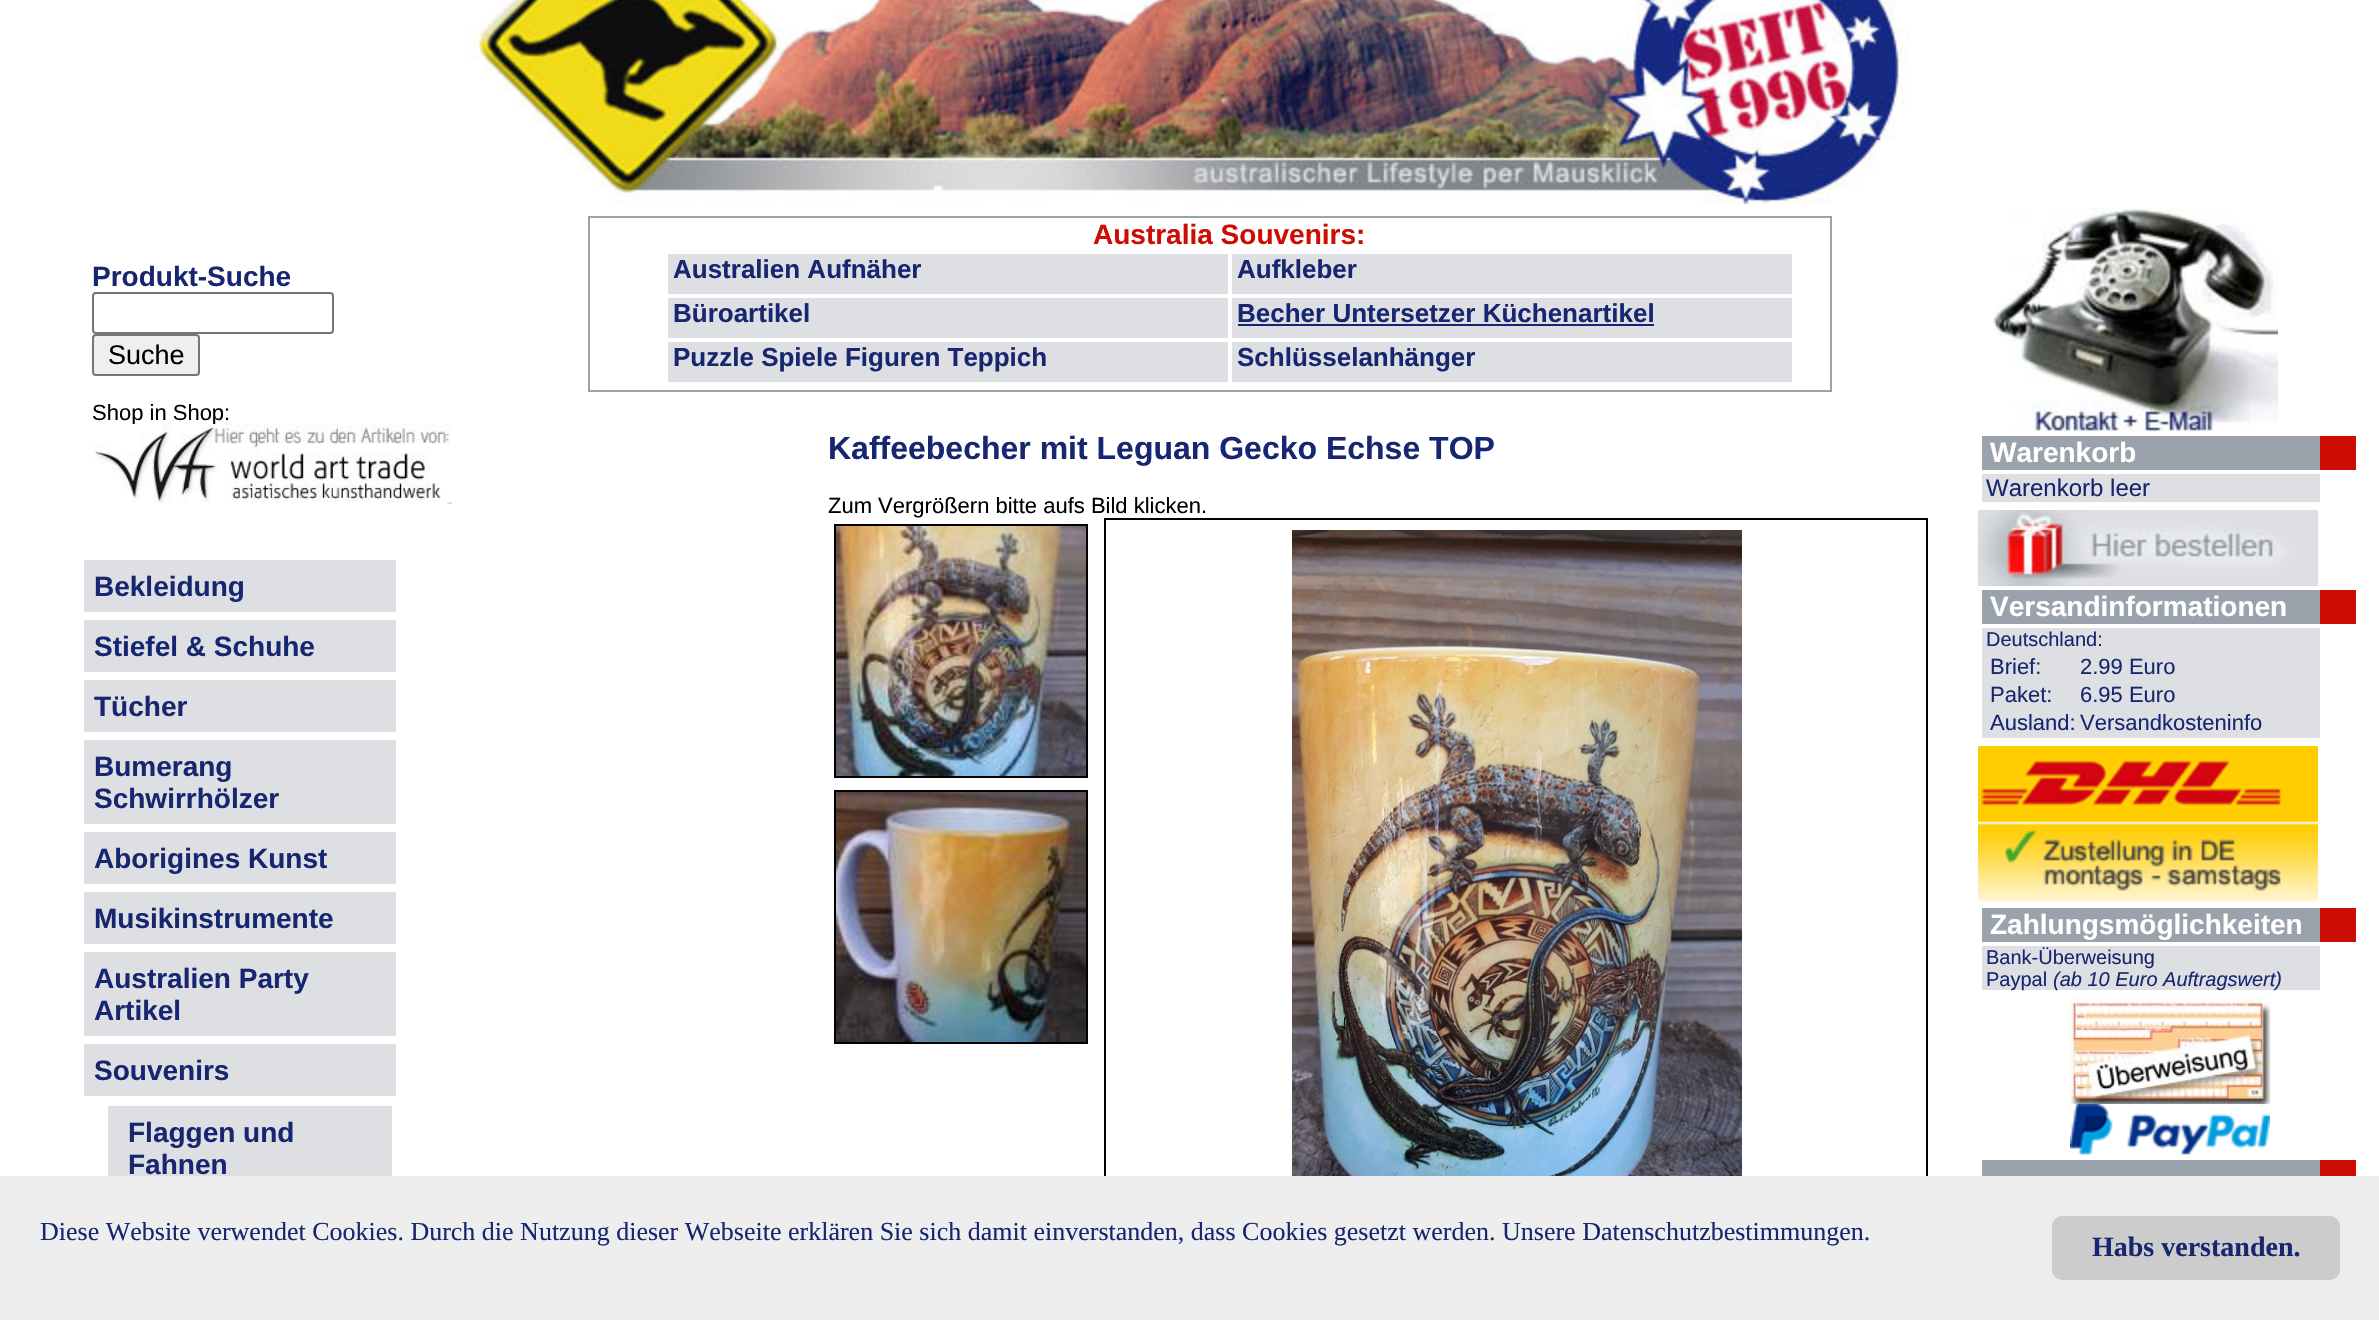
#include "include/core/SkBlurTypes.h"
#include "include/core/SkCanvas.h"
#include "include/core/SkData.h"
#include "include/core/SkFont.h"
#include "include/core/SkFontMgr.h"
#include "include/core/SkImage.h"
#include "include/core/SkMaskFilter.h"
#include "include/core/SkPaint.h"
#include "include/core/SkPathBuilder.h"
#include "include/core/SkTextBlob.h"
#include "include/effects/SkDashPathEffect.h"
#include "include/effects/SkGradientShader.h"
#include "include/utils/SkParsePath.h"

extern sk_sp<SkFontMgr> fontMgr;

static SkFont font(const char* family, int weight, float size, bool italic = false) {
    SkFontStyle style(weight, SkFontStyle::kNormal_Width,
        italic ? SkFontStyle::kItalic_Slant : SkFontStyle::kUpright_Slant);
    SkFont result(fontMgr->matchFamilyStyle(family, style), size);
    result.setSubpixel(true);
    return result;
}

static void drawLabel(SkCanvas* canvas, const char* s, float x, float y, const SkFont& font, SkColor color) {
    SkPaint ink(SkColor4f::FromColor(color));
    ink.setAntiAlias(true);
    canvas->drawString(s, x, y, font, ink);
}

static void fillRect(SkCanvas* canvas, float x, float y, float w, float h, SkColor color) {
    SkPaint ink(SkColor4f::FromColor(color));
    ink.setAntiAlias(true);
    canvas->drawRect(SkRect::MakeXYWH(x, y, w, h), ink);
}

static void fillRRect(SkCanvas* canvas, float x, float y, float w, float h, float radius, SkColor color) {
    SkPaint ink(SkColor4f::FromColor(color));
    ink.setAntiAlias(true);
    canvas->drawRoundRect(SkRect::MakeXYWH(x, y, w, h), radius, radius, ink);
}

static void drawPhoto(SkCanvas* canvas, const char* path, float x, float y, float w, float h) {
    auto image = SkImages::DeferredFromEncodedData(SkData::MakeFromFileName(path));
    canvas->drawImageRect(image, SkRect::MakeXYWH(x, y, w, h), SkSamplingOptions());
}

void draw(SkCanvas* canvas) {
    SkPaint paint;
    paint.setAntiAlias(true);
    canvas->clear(0xFFFFFFFF);
    drawPhoto(canvas, "assets/img1.png", 470, 0, 1440, 204);
    SkFont font1 = font("Liberation Sans", 700, 28);
    drawLabel(canvas, "Produkt-Suche", 92, 286, font1, 0xFF172670);
    paint.setStroke(true);
    paint.setStrokeWidth(2);
    paint.setColor(0xFF767676);
    canvas->drawRoundRect(SkRect::MakeXYWH(93, 293, 240, 40), 3, 3, paint);
    paint.setStroke(false);
    paint.setColor(0xFFEFEFEF);
    canvas->drawRoundRect(SkRect::MakeXYWH(93, 335, 106, 40), 3, 3, paint);
    paint.setStroke(true);
    paint.setColor(0xFF767676);
    canvas->drawRoundRect(SkRect::MakeXYWH(93, 335, 106, 40), 3, 3, paint);
    SkFont font2 = font("Liberation Sans", 400, 27);
    drawLabel(canvas, "Suche", 108, 364, font2, 0xFF000000);
    SkFont font3 = font("Liberation Sans", 400, 22);
    drawLabel(canvas, "Shop in Shop:", 92, 420, font3, 0xFF000000);
    drawPhoto(canvas, "assets/img2.png", 92, 424, 360, 80);
    paint.setColor(0xFF9AA3AB);
    canvas->drawRect(SkRect::MakeXYWH(589, 217, 1242, 174), paint);
    drawLabel(canvas, "Australia Souvenirs:", 1093, 244, font1, 0xFFCD0C03);
    fillRect(canvas, 668, 254, 560, 40, 0xFFDDDFE2);
    SkFont font4 = font("Liberation Sans", 700, 26);
    drawLabel(canvas, "Australien Aufnäher", 673, 278, font4, 0xFF172670);
    fillRect(canvas, 1232, 254, 560, 40, 0xFFDDDFE2);
    drawLabel(canvas, "Aufkleber", 1237, 278, font4, 0xFF172670);
    fillRect(canvas, 668, 298, 560, 40, 0xFFDDDFE2);
    drawLabel(canvas, "Büroartikel", 673, 322, font4, 0xFF172670);
    fillRect(canvas, 1232, 298, 560, 40, 0xFFDDDFE2);
    drawLabel(canvas, "Becher Untersetzer Küchenartikel", 1237, 322, font4, 0xFF172670);
    fillRect(canvas, 1238, 324, 416, 2, 0xFF172670);
    fillRect(canvas, 668, 342, 560, 40, 0xFFDDDFE2);
    drawLabel(canvas, "Puzzle Spiele Figuren Teppich", 673, 366, font4, 0xFF172670);
    fillRect(canvas, 1232, 342, 560, 40, 0xFFDDDFE2);
    drawLabel(canvas, "Schlüsselanhänger", 1237, 366, font4, 0xFF172670);
    SkFont font5 = font("Liberation Sans", 700, 32);
    drawLabel(canvas, "Kaffeebecher mit Leguan Gecko Echse TOP", 828, 459, font5, 0xFF172670);
    drawLabel(canvas, "Zum Vergrößern bitte aufs Bild klicken.", 828, 513, font3, 0xFF000000);
    paint.setColor(0xFF000000);
    canvas->drawRect(SkRect::MakeXYWH(835, 525, 252, 252), paint);
    canvas->drawRect(SkRect::MakeXYWH(1105, 519, 822, 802), paint);
    drawPhoto(canvas, "assets/img3.png", 1292, 530, 450, 646);
    drawPhoto(canvas, "assets/img4.png", 836, 526, 250, 250);
    canvas->drawRect(SkRect::MakeXYWH(835, 791, 252, 252), paint);
    drawPhoto(canvas, "assets/img5.png", 836, 792, 250, 250);
    drawPhoto(canvas, "assets/img6.png", 1993, 208, 285, 224);
    fillRect(canvas, 1982, 436, 338, 34, 0xFF9AA3AB);
    fillRect(canvas, 2320, 436, 36, 34, 0xFFCD0C03);
    drawLabel(canvas, "Warenkorb", 1990, 462, font1, 0xFFFFFFFF);
    fillRect(canvas, 1982, 474, 338, 28, 0xFFDDDFE2);
    SkFont font6 = font("Liberation Sans", 400, 24);
    drawLabel(canvas, "Warenkorb leer", 1986, 496, font6, 0xFF172670);
    drawPhoto(canvas, "assets/img7.png", 1978, 510, 340, 76);
    fillRect(canvas, 1982, 590, 338, 34, 0xFF9AA3AB);
    fillRect(canvas, 2320, 590, 36, 34, 0xFFCD0C03);
    drawLabel(canvas, "Versandinformationen", 1990, 616, font1, 0xFFFFFFFF);
    fillRect(canvas, 1982, 628, 338, 110, 0xFFDDDFE2);
    SkFont font7 = font("Liberation Sans", 400, 20);
    drawLabel(canvas, "Deutschland:", 1986, 646, font7, 0xFF172670);
    drawLabel(canvas, "Brief:", 1990, 674, font3, 0xFF172670);
    drawLabel(canvas, "2.99 Euro", 2080, 674, font3, 0xFF172670);
    drawLabel(canvas, "Paket:", 1990, 702, font3, 0xFF172670);
    drawLabel(canvas, "6.95 Euro", 2080, 702, font3, 0xFF172670);
    drawLabel(canvas, "Ausland:", 1990, 730, font3, 0xFF172670);
    drawLabel(canvas, "Versandkosteninfo", 2080, 730, font3, 0xFF172670);
    drawPhoto(canvas, "assets/img8.png", 1978, 746, 340, 157);
    fillRect(canvas, 1982, 908, 338, 34, 0xFF9AA3AB);
    fillRect(canvas, 2320, 908, 36, 34, 0xFFCD0C03);
    drawLabel(canvas, "Zahlungsmöglichkeiten", 1990, 934, font1, 0xFFFFFFFF);
    fillRect(canvas, 1982, 946, 338, 44, 0xFFDDDFE2);
    drawLabel(canvas, "Bank-Überweisung", 1986, 964, font7, 0xFF172670);
    drawLabel(canvas, "Paypal", 1986, 986, font7, 0xFF172670);
    SkFont font8 = font("Liberation Sans", 400, 20, true);
    drawLabel(canvas, "(ab 10 Euro Auftragswert)", 2053, 986, font8, 0xFF172670);
    drawPhoto(canvas, "assets/img9.png", 2070, 998, 200, 106);
    drawPhoto(canvas, "assets/img10.png", 2070, 1104, 200, 51);
    fillRect(canvas, 1982, 1160, 338, 16, 0xFF9AA3AB);
    fillRect(canvas, 2320, 1160, 36, 16, 0xFFCD0C03);
    fillRect(canvas, 84, 560, 312, 52, 0xFFDDDFE2);
    drawLabel(canvas, "Bekleidung", 94, 596, font1, 0xFF172670);
    fillRect(canvas, 84, 620, 312, 52, 0xFFDDDFE2);
    drawLabel(canvas, "Stiefel & Schuhe", 94, 656, font1, 0xFF172670);
    fillRect(canvas, 84, 680, 312, 52, 0xFFDDDFE2);
    drawLabel(canvas, "Tücher", 94, 716, font1, 0xFF172670);
    fillRect(canvas, 84, 740, 312, 84, 0xFFDDDFE2);
    drawLabel(canvas, "Bumerang", 94, 776, font1, 0xFF172670);
    drawLabel(canvas, "Schwirrhölzer", 94, 808, font1, 0xFF172670);
    fillRect(canvas, 84, 832, 312, 52, 0xFFDDDFE2);
    drawLabel(canvas, "Aborigines Kunst", 94, 868, font1, 0xFF172670);
    fillRect(canvas, 84, 892, 312, 52, 0xFFDDDFE2);
    drawLabel(canvas, "Musikinstrumente", 94, 928, font1, 0xFF172670);
    fillRect(canvas, 84, 952, 312, 84, 0xFFDDDFE2);
    drawLabel(canvas, "Australien Party", 94, 988, font1, 0xFF172670);
    drawLabel(canvas, "Artikel", 94, 1020, font1, 0xFF172670);
    fillRect(canvas, 84, 1044, 312, 52, 0xFFDDDFE2);
    drawLabel(canvas, "Souvenirs", 94, 1080, font1, 0xFF172670);
    fillRect(canvas, 108, 1106, 284, 70, 0xFFDDDFE2);
    drawLabel(canvas, "Flaggen und", 128, 1142, font1, 0xFF172670);
    drawLabel(canvas, "Fahnen", 128, 1174, font1, 0xFF172670);
    fillRect(canvas, 0, 1176, 2379, 144, 0xFFEEEEEE);
    SkFont font9 = font("Liberation Serif", 400, 26);
    drawLabel(canvas, "Diese Website verwendet Cookies. Durch die Nutzung dieser Webseite erklären Sie sich damit einverstanden, dass Cookies gesetzt werden. Unsere Datenschutzbestimmungen.", 40, 1240, font9, 0xFF172670);
    fillRRect(canvas, 2052, 1216, 288, 64, 10, 0xFFCCCCCC);
    SkFont font10 = font("Liberation Serif", 700, 28);
    drawLabel(canvas, "Habs verstanden.", 2092, 1256, font10, 0xFF172670);
}
